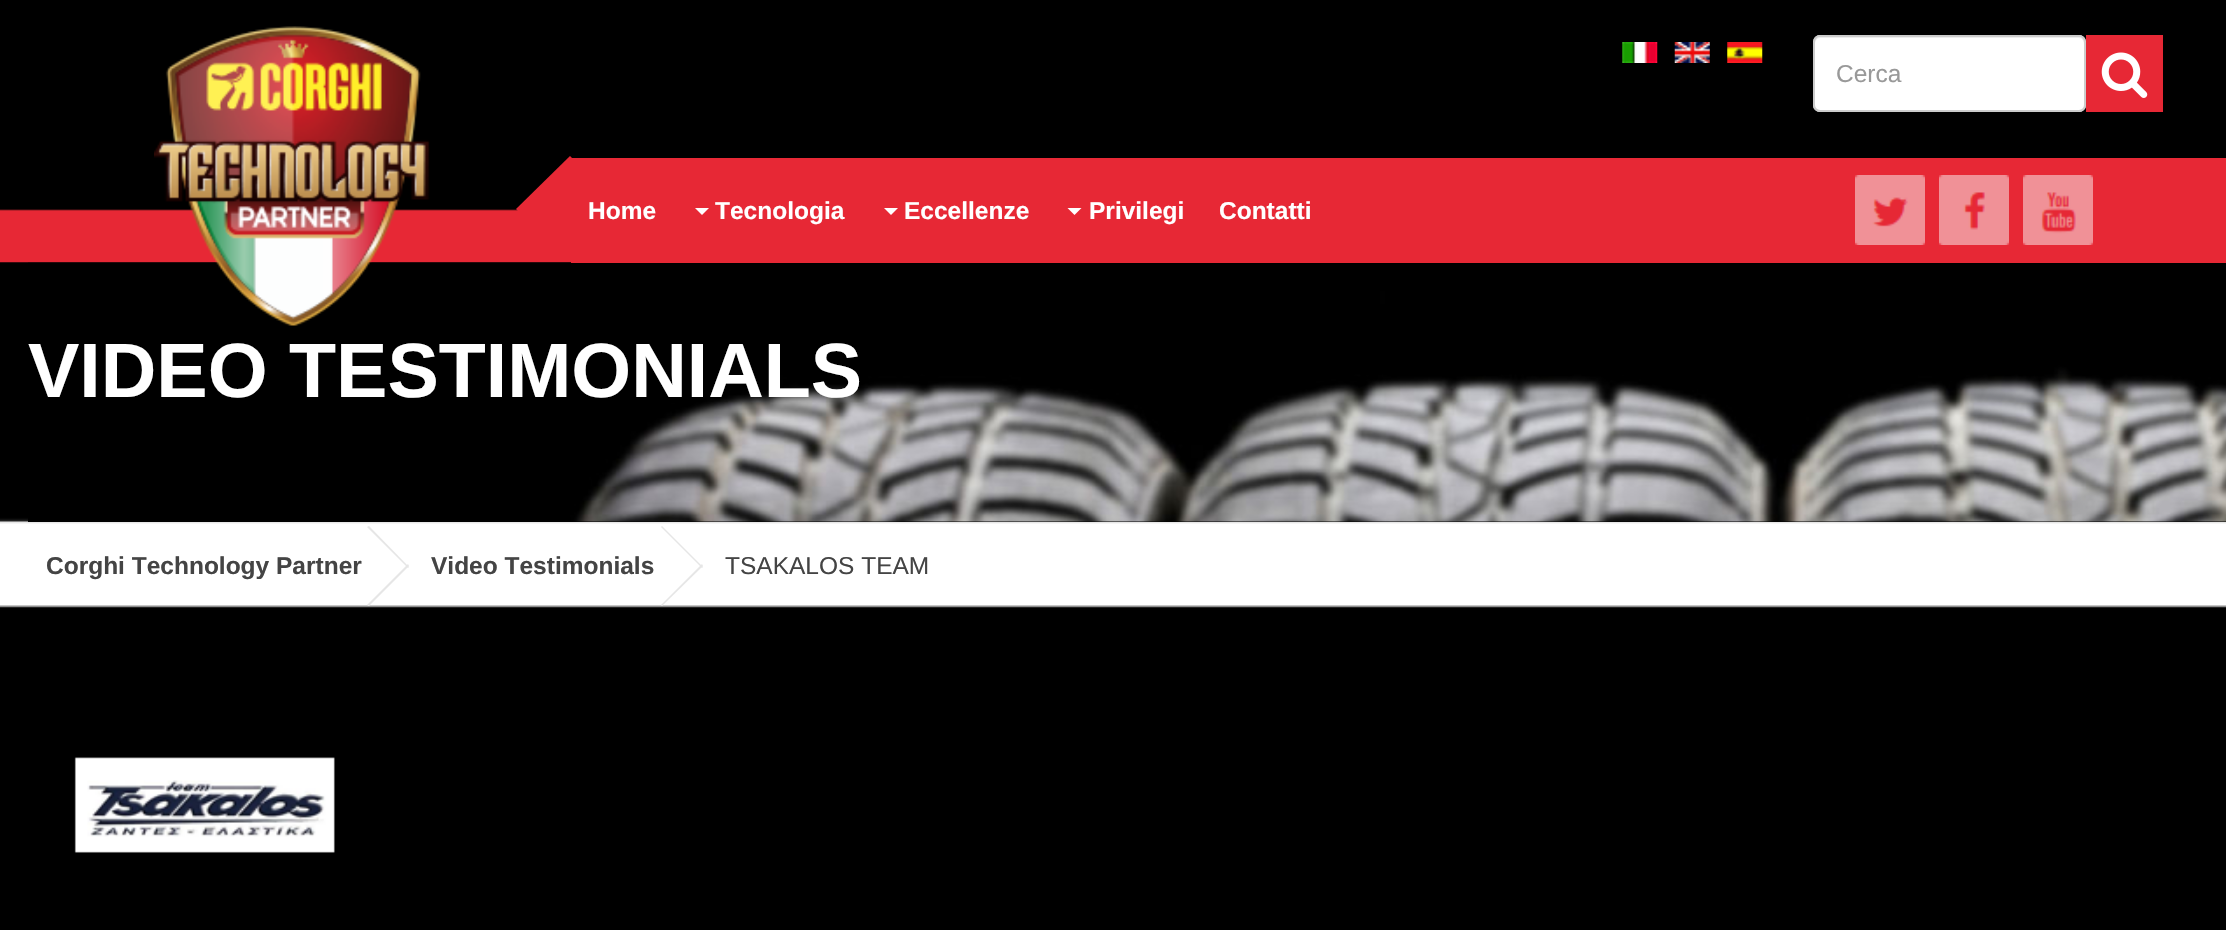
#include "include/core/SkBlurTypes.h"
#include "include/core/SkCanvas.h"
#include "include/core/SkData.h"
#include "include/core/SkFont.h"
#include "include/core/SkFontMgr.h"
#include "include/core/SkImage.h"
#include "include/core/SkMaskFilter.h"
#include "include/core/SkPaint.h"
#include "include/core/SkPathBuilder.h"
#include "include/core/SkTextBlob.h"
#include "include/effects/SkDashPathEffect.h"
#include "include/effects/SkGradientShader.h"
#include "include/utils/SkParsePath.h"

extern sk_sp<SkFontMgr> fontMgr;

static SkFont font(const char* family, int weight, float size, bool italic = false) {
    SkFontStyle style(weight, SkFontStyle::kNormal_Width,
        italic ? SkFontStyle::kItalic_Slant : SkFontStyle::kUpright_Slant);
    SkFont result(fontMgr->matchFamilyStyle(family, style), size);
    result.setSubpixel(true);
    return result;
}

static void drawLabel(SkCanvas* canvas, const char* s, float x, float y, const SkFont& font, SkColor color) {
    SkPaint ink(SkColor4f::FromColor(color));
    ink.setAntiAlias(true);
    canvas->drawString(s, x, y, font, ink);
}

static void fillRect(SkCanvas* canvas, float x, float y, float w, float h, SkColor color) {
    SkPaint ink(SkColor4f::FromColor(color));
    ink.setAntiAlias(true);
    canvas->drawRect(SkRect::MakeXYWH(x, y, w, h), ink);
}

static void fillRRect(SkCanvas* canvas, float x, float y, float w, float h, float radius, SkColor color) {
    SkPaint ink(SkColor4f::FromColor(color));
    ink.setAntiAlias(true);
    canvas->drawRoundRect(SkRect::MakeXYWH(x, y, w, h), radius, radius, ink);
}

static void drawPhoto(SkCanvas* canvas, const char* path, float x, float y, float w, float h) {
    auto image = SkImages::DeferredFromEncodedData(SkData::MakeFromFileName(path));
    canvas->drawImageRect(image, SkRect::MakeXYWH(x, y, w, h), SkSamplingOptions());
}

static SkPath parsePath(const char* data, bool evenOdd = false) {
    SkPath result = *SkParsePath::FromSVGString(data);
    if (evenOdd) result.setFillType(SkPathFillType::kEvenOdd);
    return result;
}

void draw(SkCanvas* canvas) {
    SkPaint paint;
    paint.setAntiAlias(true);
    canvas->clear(0xFF000000);
    drawPhoto(canvas, "assets/img1.png", 0, 209, 571, 54);
    drawPhoto(canvas, "assets/img10.png", 0, 262, 2226, 346);
    fillRect(canvas, 28, 521, 2198, 1, 0xFF000000);
    drawPhoto(canvas, "assets/img11.png", 28, 262, 2198, 260);
    drawPhoto(canvas, "assets/img2.png", 154, 26, 276, 300);
    drawPhoto(canvas, "assets/img3.png", 1622, 42, 36, 21);
    drawPhoto(canvas, "assets/img4.png", 1674, 42, 36, 21);
    drawPhoto(canvas, "assets/img5.png", 1727, 42, 36, 21);
    fillRRect(canvas, 1813, 35, 273, 77, 7, 0xFFFFFFFF);
    paint.setColor(0xFFECECEC);
    canvas->drawPath(parsePath("M1820 38H2079C2082 38 2084 41 2084 44V42C2084 39 2082 37 2079 37H1820C1817 37 1815 39 1815 42V44C1815 41 1817 38 1820 38Z"), paint);
    paint.setStroke(true);
    paint.setStrokeWidth(2);
    paint.setColor(0xFFCCCCCC);
    canvas->drawRoundRect(SkRect::MakeXYWH(1814, 36, 271, 75), 6, 6, paint);
    SkFont font1 = font("Liberation Sans", 400, 24.5f);
    drawLabel(canvas, "Cerca", 1836, 82, font1, 0xFF999999);
    fillRect(canvas, 2086, 35, 77, 77, 0xFFE72835);
    drawPhoto(canvas, "assets/img6.png", 2101, 52, 47, 46);
    paint.setStroke(false);
    paint.setColor(0xFFE72835);
    canvas->drawPath(parsePath("M623 209L570 262L516 209L570 156Z"), paint);
    fillRect(canvas, 571, 158, 1655, 105, 0xFFE72835);
    SkFont font2 = font("Liberation Sans", 700, 24.5f);
    drawLabel(canvas, "Home", 588, 219, font2, 0xFFFFFFFF);
    paint.setColor(0xFFFFFFFF);
    canvas->drawPath(parsePath("M695 208H709L702 215Z"), paint);
    drawLabel(canvas, "Tecnologia", 715, 219, font2, 0xFFFFFFFF);
    canvas->drawPath(parsePath("M884 208H898L891 215Z"), paint);
    drawLabel(canvas, "Eccellenze", 904, 219, font2, 0xFFFFFFFF);
    canvas->drawPath(parsePath("M1067.5 208H1081.5L1074.5 215Z"), paint);
    drawLabel(canvas, "Privilegi", 1089, 219, font2, 0xFFFFFFFF);
    drawLabel(canvas, "Contatti", 1219, 219, font2, 0xFFFFFFFF);
    drawPhoto(canvas, "assets/img7.png", 1855, 175, 70, 70);
    drawPhoto(canvas, "assets/img8.png", 1939, 175, 70, 70);
    drawPhoto(canvas, "assets/img9.png", 2023, 175, 70, 70);
    SkFont font3 = font("Liberation Sans", 700, 77);
    drawLabel(canvas, "VIDEO TESTIMONIALS", 28, 397, font3, 0xFFFFFFFF);
    drawLabel(canvas, "Corghi Technology Partner", 46, 574, font2, 0xFF444444);
    paint.setColor(0xFFE6E6E6);
    canvas->drawPath(parsePath("M367 527L369 526L409 567L408 568Z"), paint);
    canvas->drawPath(parsePath("M408 564L409 566L369 606L367 605Z"), paint);
    drawLabel(canvas, "Video Testimonials", 431, 574, font2, 0xFF444444);
    canvas->drawPath(parsePath("M661 527L662 526L703 567L702 568Z"), paint);
    canvas->drawPath(parsePath("M702 564L703 566L662 606L661 605Z"), paint);
    drawLabel(canvas, "TSAKALOS TEAM", 725, 574, font1, 0xFF444444);
    drawPhoto(canvas, "assets/img12.png", 74, 757, 261, 96);
}
